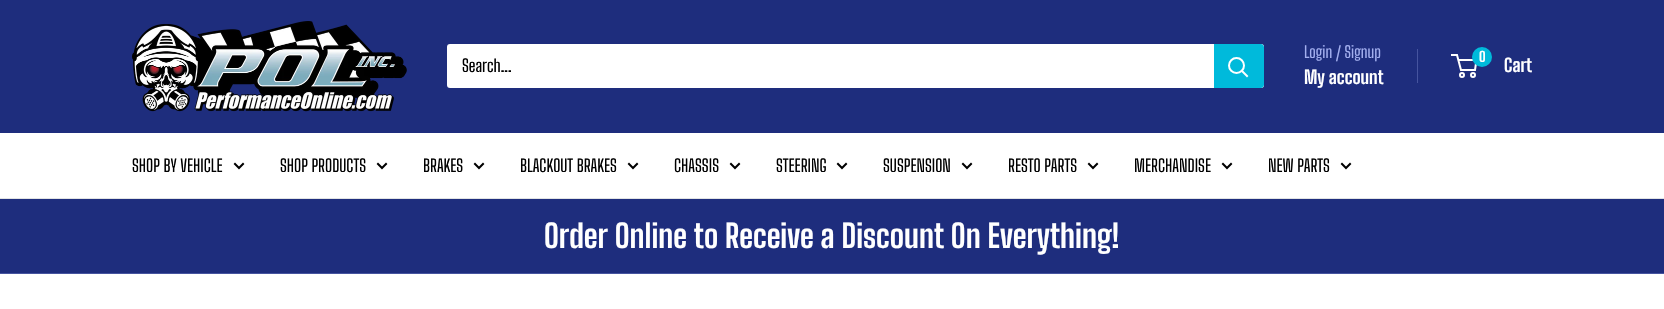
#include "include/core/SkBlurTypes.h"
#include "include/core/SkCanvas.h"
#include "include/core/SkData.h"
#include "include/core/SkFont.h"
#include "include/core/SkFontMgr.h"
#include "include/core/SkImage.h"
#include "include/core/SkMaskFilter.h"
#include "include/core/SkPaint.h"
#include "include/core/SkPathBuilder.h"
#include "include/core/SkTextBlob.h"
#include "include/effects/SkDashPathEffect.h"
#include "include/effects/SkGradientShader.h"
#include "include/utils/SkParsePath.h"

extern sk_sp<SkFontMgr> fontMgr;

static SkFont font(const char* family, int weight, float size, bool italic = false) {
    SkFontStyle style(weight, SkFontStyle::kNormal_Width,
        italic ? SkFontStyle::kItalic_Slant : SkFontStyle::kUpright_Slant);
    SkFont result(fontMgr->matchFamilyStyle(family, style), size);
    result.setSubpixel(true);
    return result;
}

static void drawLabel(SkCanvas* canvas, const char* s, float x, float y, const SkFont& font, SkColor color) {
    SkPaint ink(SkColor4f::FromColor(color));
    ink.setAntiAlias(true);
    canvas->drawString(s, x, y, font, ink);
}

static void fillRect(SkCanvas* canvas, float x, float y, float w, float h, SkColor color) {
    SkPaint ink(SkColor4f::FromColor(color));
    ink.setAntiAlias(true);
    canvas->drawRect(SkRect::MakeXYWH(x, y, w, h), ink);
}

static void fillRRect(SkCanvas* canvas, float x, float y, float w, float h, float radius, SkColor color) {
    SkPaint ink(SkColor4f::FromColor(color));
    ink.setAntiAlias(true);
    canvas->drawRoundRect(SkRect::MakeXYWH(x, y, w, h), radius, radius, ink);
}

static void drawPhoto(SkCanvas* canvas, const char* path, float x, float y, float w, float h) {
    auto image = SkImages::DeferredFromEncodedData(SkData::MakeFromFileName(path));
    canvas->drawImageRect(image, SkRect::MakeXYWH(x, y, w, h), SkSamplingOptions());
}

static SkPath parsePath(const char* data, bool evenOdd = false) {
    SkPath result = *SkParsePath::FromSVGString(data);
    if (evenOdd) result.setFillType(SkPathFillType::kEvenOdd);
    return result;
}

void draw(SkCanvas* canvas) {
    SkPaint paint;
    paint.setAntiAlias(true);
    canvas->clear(0xFFFFFFFF);
    fillRect(canvas, 0, 0, 1664, 133, 0xFF1E2D7D);
    drawPhoto(canvas, "assets/img1.png", 132, 21, 275, 91);
    fillRRect(canvas, 447, 44, 817, 44, 3, 0xFFFFFFFF);
    SkFont font1 = font("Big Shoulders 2", 400, 17);
    drawLabel(canvas, "Search...", 462, 72, font1, 0xFF000000);
    paint.setColor(0xFF00BADB);
    canvas->drawPath(parsePath("M1214 44H1261C1262.5 44 1264 45.5 1264 47V85C1264 86.5 1262.5 88 1261 88H1214Z"), paint);
    paint.setStroke(true);
    paint.setStrokeWidth(2);
    paint.setStrokeCap(SkPaint::kSquare_Cap);
    paint.setColor(0xFFFFFFFF);
    canvas->drawPath(parsePath("M1247 76L1242 71"), paint);
    paint.setStrokeCap(SkPaint::kButt_Cap);
    canvas->drawCircle(1236.5f, 65.5f, 7.5f, paint);
    SkFont font2 = font("Big Shoulders", 400, 16);
    drawLabel(canvas, "Login / Signup", 1304, 58, font2, 0xFFA3AFEF);
    fillRect(canvas, 1417, 49, 1, 34, 0xFF46549F);
    SkFont font3 = font("Big Shoulders 2", 600, 18);
    drawLabel(canvas, "My account", 1304, 84, font3, 0xFFFFFFFF);
    canvas->drawCircle(1462, 75, 2, paint);
    canvas->drawCircle(1473, 75, 2, paint);
    canvas->drawPath(parsePath("M1458.5 60H1476.5L1475 70H1461L1457 55H1451"), paint);
    paint.setStroke(false);
    paint.setColor(0xFF00BADB);
    canvas->drawCircle(1482, 57, 10, paint);
    SkFont font4 = font("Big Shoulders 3", 600, 14);
    drawLabel(canvas, "0", 1479, 62, font4, 0xFFFFFFFF);
    drawLabel(canvas, "Cart", 1504, 72, font3, 0xFFFFFFFF);
    fillRect(canvas, 0, 198, 1664, 1, 0xFFE1E3E4);
    drawLabel(canvas, "SHOP BY VEHICLE", 132, 172, font1, 0xFF000000);
    paint.setStroke(true);
    paint.setStrokeCap(SkPaint::kSquare_Cap);
    paint.setColor(0xFF000000);
    canvas->drawPath(parsePath("M243 164L239 168L235 164"), paint);
    drawLabel(canvas, "SHOP PRODUCTS", 280, 172, font1, 0xFF000000);
    canvas->drawPath(parsePath("M386 164L382 168L378 164"), paint);
    drawLabel(canvas, "BRAKES", 423, 172, font1, 0xFF000000);
    canvas->drawPath(parsePath("M483 164L479 168L475 164"), paint);
    drawLabel(canvas, "BLACKOUT BRAKES", 520, 172, font1, 0xFF000000);
    canvas->drawPath(parsePath("M637 164L633 168L629 164"), paint);
    drawLabel(canvas, "CHASSIS", 674, 172, font1, 0xFF000000);
    canvas->drawPath(parsePath("M739 164L735 168L731 164"), paint);
    drawLabel(canvas, "STEERING", 776, 172, font1, 0xFF000000);
    canvas->drawPath(parsePath("M846 164L842 168L838 164"), paint);
    drawLabel(canvas, "SUSPENSION", 883, 172, font1, 0xFF000000);
    canvas->drawPath(parsePath("M971 164L967 168L963 164"), paint);
    drawLabel(canvas, "RESTO PARTS", 1008, 172, font1, 0xFF000000);
    canvas->drawPath(parsePath("M1097 164L1093 168L1089 164"), paint);
    drawLabel(canvas, "MERCHANDISE", 1134, 172, font1, 0xFF000000);
    canvas->drawPath(parsePath("M1231 164L1227 168L1223 164"), paint);
    drawLabel(canvas, "NEW PARTS", 1268, 172, font1, 0xFF000000);
    canvas->drawPath(parsePath("M1350 164L1346 168L1342 164"), paint);
    fillRect(canvas, 0, 199, 1664, 74, 0xFF1E2D7D);
    fillRect(canvas, 0, 273, 1664, 1, 0xFF46549F);
    SkFont font5 = font("Big Shoulders", 600, 32);
    drawLabel(canvas, "Order Online to Receive a Discount On Everything!", 544, 248, font5, 0xFFFFFFFF);
}
